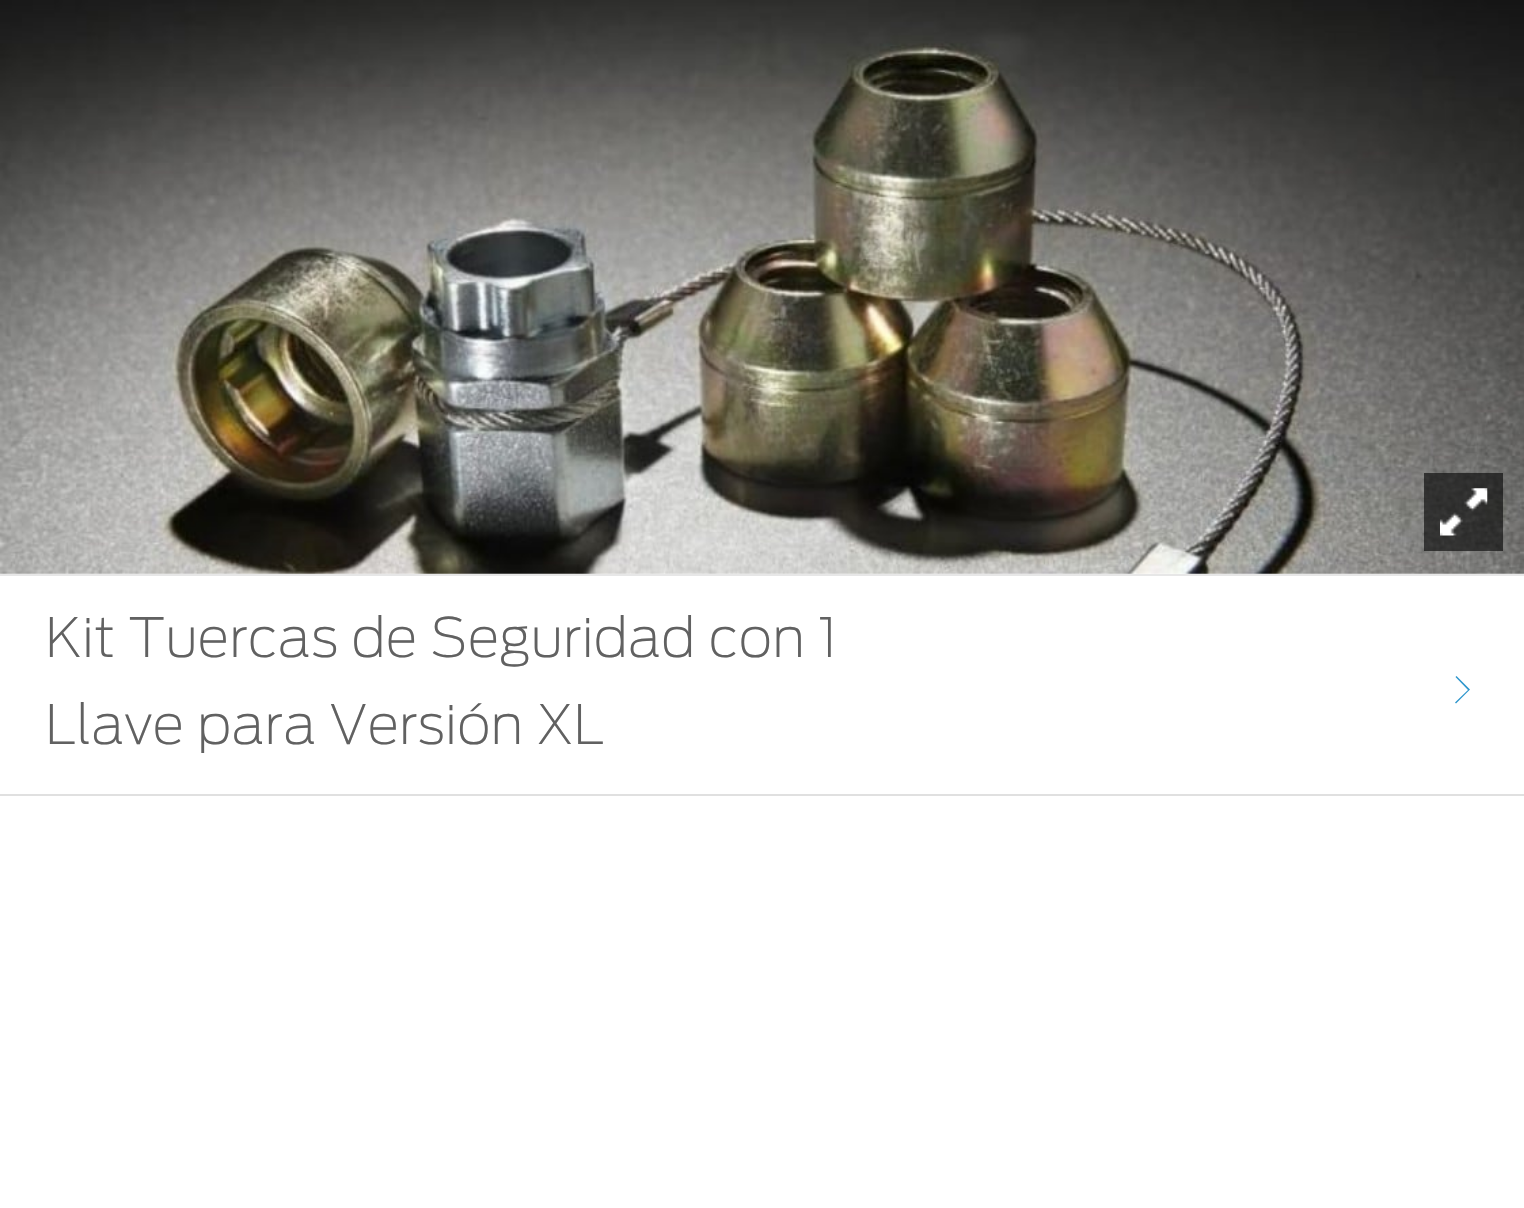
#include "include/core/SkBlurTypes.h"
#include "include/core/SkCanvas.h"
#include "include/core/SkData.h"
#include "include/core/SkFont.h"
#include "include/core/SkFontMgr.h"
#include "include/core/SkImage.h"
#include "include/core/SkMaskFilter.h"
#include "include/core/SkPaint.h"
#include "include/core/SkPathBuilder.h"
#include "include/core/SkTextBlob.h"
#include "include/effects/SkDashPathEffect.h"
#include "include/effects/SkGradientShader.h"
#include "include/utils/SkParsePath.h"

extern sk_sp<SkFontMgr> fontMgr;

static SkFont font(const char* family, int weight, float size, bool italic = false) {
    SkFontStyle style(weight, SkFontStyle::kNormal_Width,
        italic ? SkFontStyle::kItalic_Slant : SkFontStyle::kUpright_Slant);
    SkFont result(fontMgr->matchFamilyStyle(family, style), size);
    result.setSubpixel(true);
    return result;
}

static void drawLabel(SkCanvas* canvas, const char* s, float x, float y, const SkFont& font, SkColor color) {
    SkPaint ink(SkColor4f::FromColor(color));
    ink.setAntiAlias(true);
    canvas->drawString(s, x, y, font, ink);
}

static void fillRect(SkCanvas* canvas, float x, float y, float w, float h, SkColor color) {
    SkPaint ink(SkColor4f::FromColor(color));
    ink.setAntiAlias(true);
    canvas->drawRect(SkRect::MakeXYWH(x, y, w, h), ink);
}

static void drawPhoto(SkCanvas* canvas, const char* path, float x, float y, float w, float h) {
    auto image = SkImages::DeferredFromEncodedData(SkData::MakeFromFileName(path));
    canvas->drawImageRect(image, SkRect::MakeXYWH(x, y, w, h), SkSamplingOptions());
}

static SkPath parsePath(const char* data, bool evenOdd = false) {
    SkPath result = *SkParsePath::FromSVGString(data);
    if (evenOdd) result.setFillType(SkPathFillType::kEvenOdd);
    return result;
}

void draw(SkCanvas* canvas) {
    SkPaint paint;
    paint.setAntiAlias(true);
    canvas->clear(0xFFFFFFFF);
    drawPhoto(canvas, "assets/img1.png", 0, 0, 1524, 574);
    fillRect(canvas, 1424, 473, 79, 78, 0x99000000);
    drawPhoto(canvas, "assets/img2.png", 1440, 488, 48, 48);
    fillRect(canvas, 0, 574, 1524, 2, 0xFFE7E7E7);
    SkFont font1 = font("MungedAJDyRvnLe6", 200, 54);
    drawLabel(canvas, "Kit Tuercas de Seguridad con 1", 45, 657, font1, 0xFF616161);
    drawLabel(canvas, "Llave para Versión XL", 45, 744, font1, 0xFF616161);
    paint.setColor(0xFF2D96CD);
    canvas->drawPath(parsePath("M1455.5 677L1456.5 676L1470 689.5L1456 703.5L1455 702.5L1468 690Z"), paint);
    fillRect(canvas, 0, 794, 1524, 2, 0xFFE0E0E0);
}
